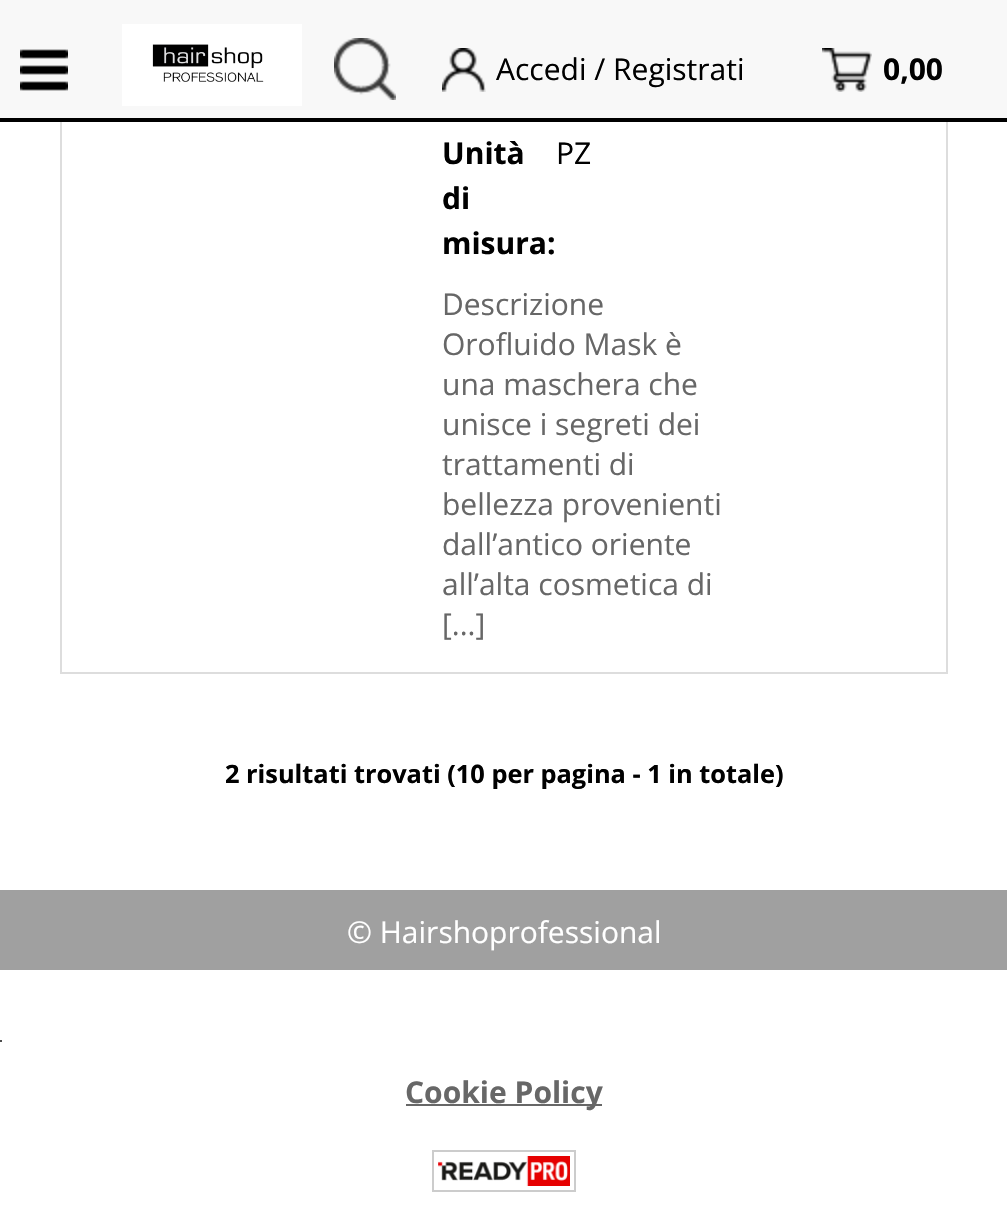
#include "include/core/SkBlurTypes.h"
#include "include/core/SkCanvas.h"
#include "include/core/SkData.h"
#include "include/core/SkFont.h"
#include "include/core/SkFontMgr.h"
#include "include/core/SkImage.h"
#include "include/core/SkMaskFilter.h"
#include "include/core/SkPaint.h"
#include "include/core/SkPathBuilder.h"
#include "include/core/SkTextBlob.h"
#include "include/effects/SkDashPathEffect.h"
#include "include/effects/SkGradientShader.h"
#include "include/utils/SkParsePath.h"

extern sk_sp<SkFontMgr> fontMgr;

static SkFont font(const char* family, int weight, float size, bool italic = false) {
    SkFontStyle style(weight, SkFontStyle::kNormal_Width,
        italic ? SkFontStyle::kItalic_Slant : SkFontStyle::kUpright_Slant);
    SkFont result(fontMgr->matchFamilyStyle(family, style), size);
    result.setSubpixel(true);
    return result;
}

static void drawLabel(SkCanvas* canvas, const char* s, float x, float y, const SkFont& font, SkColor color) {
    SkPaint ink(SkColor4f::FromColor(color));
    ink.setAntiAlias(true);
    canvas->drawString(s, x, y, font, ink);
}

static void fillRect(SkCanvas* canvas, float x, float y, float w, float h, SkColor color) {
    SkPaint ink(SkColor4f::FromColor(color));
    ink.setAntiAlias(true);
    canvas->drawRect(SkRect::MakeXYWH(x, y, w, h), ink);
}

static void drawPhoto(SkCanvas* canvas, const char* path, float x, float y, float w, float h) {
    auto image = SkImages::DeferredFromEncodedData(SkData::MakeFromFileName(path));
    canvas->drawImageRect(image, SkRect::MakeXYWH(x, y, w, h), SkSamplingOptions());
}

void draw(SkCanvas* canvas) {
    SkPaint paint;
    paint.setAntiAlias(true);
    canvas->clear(0xFFFFFFFF);
    paint.setStroke(true);
    paint.setStrokeWidth(2);
    paint.setColor(0xFFDDDDDD);
    canvas->drawRect(SkRect::MakeXYWH(61, -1, 886, 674), paint);
    fillRect(canvas, 0, 0, 1007, 118, 0xFFF8F8F8);
    fillRect(canvas, 0, 118, 1007, 4, 0xFF000000);
    drawPhoto(canvas, "assets/img1.png", 20, 49, 48, 42);
    drawPhoto(canvas, "assets/img2.png", 122, 24, 180, 82);
    drawPhoto(canvas, "assets/img3.png", 334, 38, 62, 62);
    drawPhoto(canvas, "assets/img4.png", 442, 48, 44, 44);
    SkFont font1 = font("Open Sans", 400, 30);
    drawLabel(canvas, "Accedi / Registrati", 496, 80, font1, 0xFF000000);
    drawPhoto(canvas, "assets/img5.png", 822, 48, 50, 44);
    SkFont font2 = font("Open Sans", 700, 30);
    drawLabel(canvas, "0,00", 883, 80, font2, 0xFF000000);
    drawLabel(canvas, "Unità", 442, 164, font2, 0xFF000000);
    drawLabel(canvas, "di", 442, 209, font2, 0xFF000000);
    drawLabel(canvas, "misura:", 442, 254, font2, 0xFF000000);
    drawLabel(canvas, "PZ", 556, 164, font1, 0xFF000000);
    drawLabel(canvas, "Descrizione", 442, 315, font1, 0xFF676767);
    drawLabel(canvas, "Orofluido Mask è", 442, 355, font1, 0xFF676767);
    drawLabel(canvas, "una maschera che", 442, 395, font1, 0xFF676767);
    drawLabel(canvas, "unisce i segreti dei", 442, 435, font1, 0xFF676767);
    drawLabel(canvas, "trattamenti di", 442, 475, font1, 0xFF676767);
    drawLabel(canvas, "bellezza provenienti", 442, 515, font1, 0xFF676767);
    drawLabel(canvas, "dall’antico oriente", 442, 555, font1, 0xFF676767);
    drawLabel(canvas, "all’alta cosmetica di", 442, 595, font1, 0xFF676767);
    drawLabel(canvas, "[...]", 442, 635, font1, 0xFF676767);
    SkFont font3 = font("Open Sans", 700, 25.35f);
    drawLabel(canvas, "2 risultati trovati (10 per pagina - 1 in totale)", 225, 783, font3, 0xFF000000);
    fillRect(canvas, 0, 890, 1007, 80, 0xFFA0A0A0);
    drawLabel(canvas, "© Hairshoprofessional", 347, 943, font1, 0xFFFFFFFF);
    fillRect(canvas, 0, 1040, 2, 2, 0xFF4D4D4D);
    fillRect(canvas, 406, 1104, 196, 2, 0xFF676767);
    drawLabel(canvas, "Cookie Policy", 405, 1103, font2, 0xFF676767);
    paint.setColor(0xFFCCCCCC);
    canvas->drawRect(SkRect::MakeXYWH(433, 1151, 142, 40), paint);
    drawPhoto(canvas, "assets/img6.png", 438, 1156, 132, 30);
}
